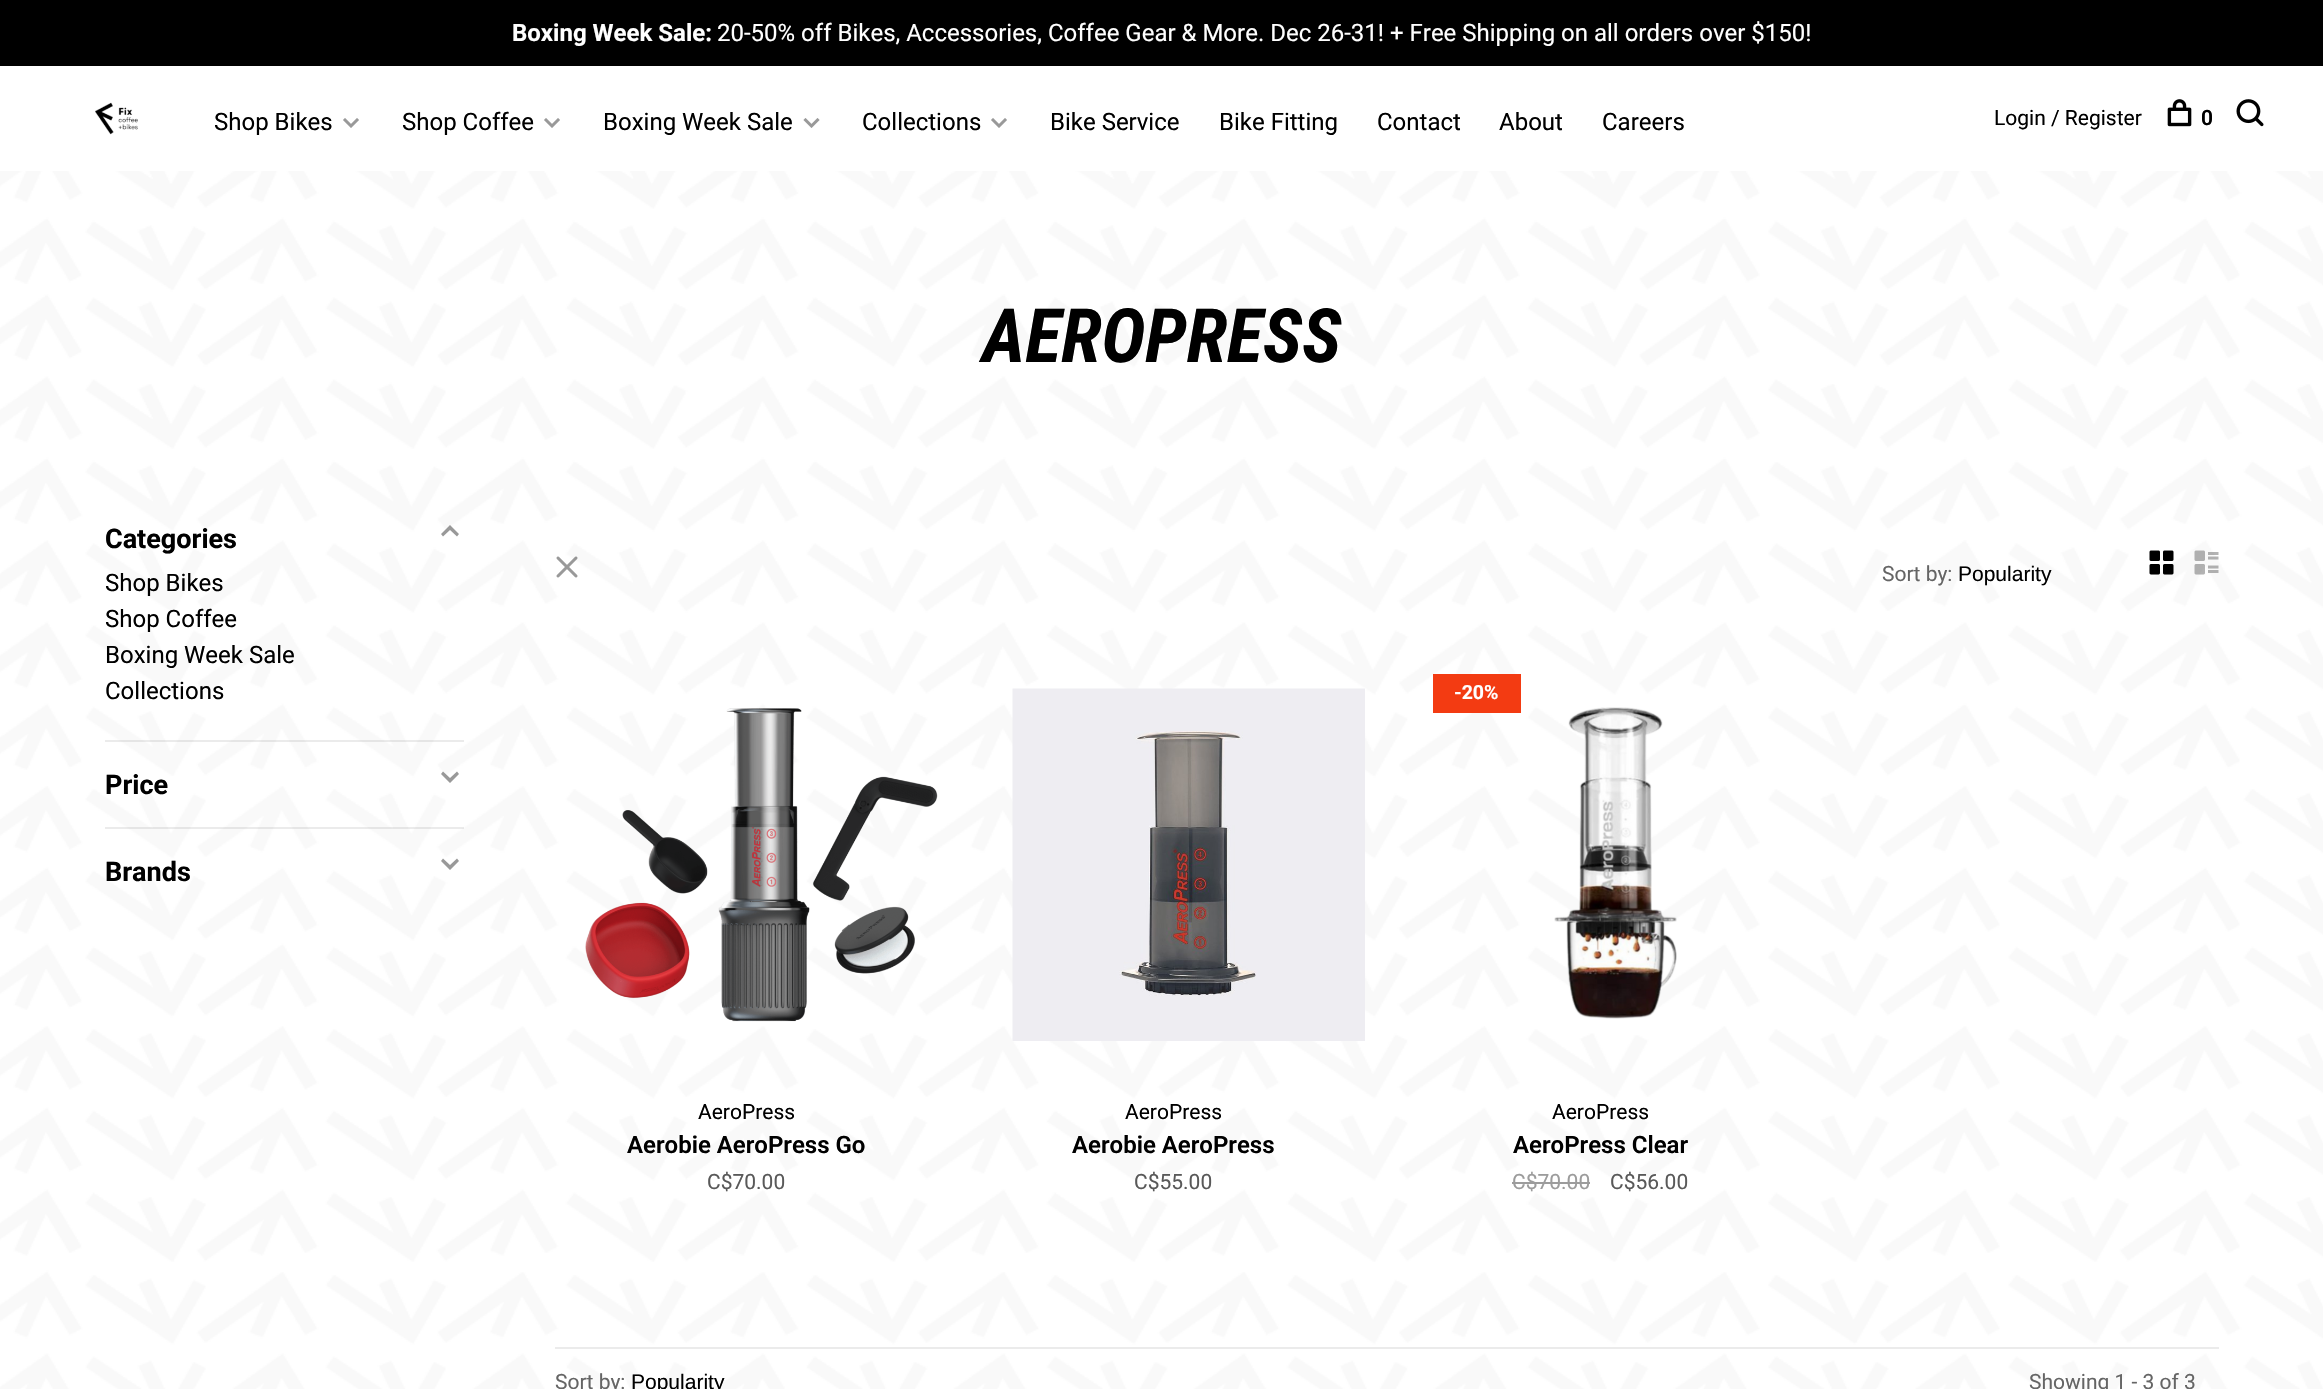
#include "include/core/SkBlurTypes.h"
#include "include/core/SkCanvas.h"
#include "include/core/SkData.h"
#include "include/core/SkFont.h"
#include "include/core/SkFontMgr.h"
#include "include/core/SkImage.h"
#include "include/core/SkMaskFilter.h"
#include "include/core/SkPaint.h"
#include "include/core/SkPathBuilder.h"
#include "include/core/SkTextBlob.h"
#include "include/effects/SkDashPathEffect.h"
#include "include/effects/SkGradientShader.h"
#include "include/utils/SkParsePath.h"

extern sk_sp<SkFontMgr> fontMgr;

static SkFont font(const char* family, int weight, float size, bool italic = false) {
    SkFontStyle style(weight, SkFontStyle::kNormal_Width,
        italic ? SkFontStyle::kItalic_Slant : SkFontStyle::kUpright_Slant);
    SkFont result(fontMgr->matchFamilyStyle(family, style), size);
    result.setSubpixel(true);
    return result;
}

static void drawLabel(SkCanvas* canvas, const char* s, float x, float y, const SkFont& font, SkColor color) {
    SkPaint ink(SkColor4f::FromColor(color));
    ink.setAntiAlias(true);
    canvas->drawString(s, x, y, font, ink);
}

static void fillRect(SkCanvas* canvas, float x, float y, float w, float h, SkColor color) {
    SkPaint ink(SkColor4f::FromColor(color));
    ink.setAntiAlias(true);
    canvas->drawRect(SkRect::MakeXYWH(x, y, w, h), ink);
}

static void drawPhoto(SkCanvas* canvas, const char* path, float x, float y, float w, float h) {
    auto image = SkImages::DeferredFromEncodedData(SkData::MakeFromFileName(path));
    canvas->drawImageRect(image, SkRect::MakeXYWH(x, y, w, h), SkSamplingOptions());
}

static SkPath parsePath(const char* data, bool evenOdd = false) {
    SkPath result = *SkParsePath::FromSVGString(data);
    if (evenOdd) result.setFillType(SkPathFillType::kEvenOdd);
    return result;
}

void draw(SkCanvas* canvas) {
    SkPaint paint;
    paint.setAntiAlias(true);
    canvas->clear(0xFFFFFFFF);
    drawPhoto(canvas, "assets/img1.png", 0, 171, 2323, 1218);
    fillRect(canvas, 0, 0, 2323, 66, 0xFF000000);
    SkFont font1 = font("Roboto", 700, 24);
    drawLabel(canvas, "Boxing Week Sale:", 512, 41, font1, 0xFFFFFFFF);
    SkFont font2 = font("Roboto", 400, 24);
    drawLabel(canvas, "20-50% off Bikes, Accessories, Coffee Gear & More. Dec 26-31! + Free Shipping on all orders over $150!", 717, 41, font2, 0xFFFFFFFF);
    drawPhoto(canvas, "assets/img2.png", 95, 102, 43, 33);
    drawLabel(canvas, "Shop Bikes", 214, 130, font2, 0xFF000000);
    drawPhoto(canvas, "assets/img3.png", 343, 118, 16, 10);
    drawLabel(canvas, "Shop Coffee", 402, 130, font2, 0xFF000000);
    drawPhoto(canvas, "assets/img3.png", 544, 118, 16, 10);
    drawLabel(canvas, "Boxing Week Sale", 603, 130, font2, 0xFF000000);
    drawPhoto(canvas, "assets/img4.png", 803, 118, 17, 10);
    drawLabel(canvas, "Collections", 862, 130, font2, 0xFF000000);
    drawPhoto(canvas, "assets/img3.png", 991, 118, 16, 10);
    drawLabel(canvas, "Bike Service", 1050, 130, font2, 0xFF000000);
    drawLabel(canvas, "Bike Fitting", 1219, 130, font2, 0xFF000000);
    drawLabel(canvas, "Contact", 1377, 130, font2, 0xFF000000);
    drawLabel(canvas, "About", 1499, 130, font2, 0xFF000000);
    drawLabel(canvas, "Careers", 1602, 130, font2, 0xFF000000);
    SkFont font3 = font("Roboto", 400, 21);
    drawLabel(canvas, "Login / Register", 1994, 125, font3, 0xFF000000);
    drawPhoto(canvas, "assets/img5.png", 2167, 99, 25, 28);
    SkFont font4 = font("Roboto", 600, 21);
    drawLabel(canvas, "0", 2201, 125, font4, 0xFF000000);
    drawPhoto(canvas, "assets/img6.png", 2236, 99, 28, 28);
    SkFont font5 = font("Roboto Condensed", 700, 75, true);
    drawLabel(canvas, "AEROPRESS", 982, 362, font5, 0xFF000000);
    fillRect(canvas, 105, 740, 359, 2, 0x14000000);
    SkFont font6 = font("Roboto", 700, 27);
    drawLabel(canvas, "Categories", 105, 548, font6, 0xFF000000);
    paint.setColor(0x66000000);
    canvas->drawPath(parsePath("M450 525L459 534L457 536.5L450 530L443 536.5L441 534Z"), paint);
    drawLabel(canvas, "Shop Bikes", 105, 591, font2, 0xFF000000);
    drawLabel(canvas, "Shop Coffee", 105, 627, font2, 0xFF000000);
    drawLabel(canvas, "Boxing Week Sale", 105, 663, font2, 0xFF000000);
    drawLabel(canvas, "Collections", 105, 699, font2, 0xFF000000);
    fillRect(canvas, 105, 827, 359, 2, 0x14000000);
    drawLabel(canvas, "Price", 105, 794, font6, 0xFF000000);
    canvas->drawPath(parsePath("M450 783L441 774L443 771.5L450 778L457 771.5L459 774Z"), paint);
    drawLabel(canvas, "Brands", 105, 881, font6, 0xFF000000);
    paint.setColor(0xFF999999);
    canvas->drawPath(parsePath("M450 870L441 861L443 858.5L450 865L457 858.5L459 861Z"), paint);
    drawPhoto(canvas, "assets/img7.png", 556, 556, 22, 22);
    drawLabel(canvas, "Sort by:", 1882, 581, font3, 0xFF656565);
    SkFont font7 = font("Liberation Sans", 400, 21);
    drawLabel(canvas, "Popularity", 1958, 581, font7, 0xFF000000);
    drawPhoto(canvas, "assets/img8.png", 2149, 550, 25, 25);
    drawPhoto(canvas, "assets/img9.png", 2194, 550, 25, 25);
    drawPhoto(canvas, "assets/img10.png", 585, 708, 353, 314);
    drawLabel(canvas, "AeroPress", 698, 1119, font3, 0xFF000000);
    SkFont font8 = font("Roboto", 600, 24);
    drawLabel(canvas, "Aerobie AeroPress Go", 627, 1153, font8, 0xFF000000);
    drawLabel(canvas, "C$70.00", 707, 1189, font3, 0xFF595959);
    drawPhoto(canvas, "assets/img11.png", 1012, 688, 353, 353);
    drawLabel(canvas, "AeroPress", 1125, 1119, font3, 0xFF000000);
    drawLabel(canvas, "Aerobie AeroPress", 1072, 1153, font8, 0xFF000000);
    drawLabel(canvas, "C$55.00", 1134, 1189, font3, 0xFF595959);
    fillRect(canvas, 1433, 674, 88, 39, 0xFFF33B12);
    SkFont font9 = font("Roboto", 700, 19.5f);
    drawLabel(canvas, "-20%", 1454, 699, font9, 0xFFFFFFFF);
    drawPhoto(canvas, "assets/img12.png", 1554, 707, 123, 312);
    drawLabel(canvas, "AeroPress", 1552, 1119, font3, 0xFF000000);
    drawLabel(canvas, "AeroPress Clear", 1513, 1153, font8, 0xFF000000);
    drawLabel(canvas, "C$70.00", 1512, 1189, font3, 0xFF9C9C9C);
    fillRect(canvas, 1512, 1182, 78, 2, 0xFF9C9C9C);
    drawLabel(canvas, "C$56.00", 1610, 1189, font3, 0xFF595959);
    fillRect(canvas, 555, 1347, 1664, 2, 0xFFEBEBEB);
    drawLabel(canvas, "Sort by:", 555, 1389, font3, 0xFF656565);
    drawLabel(canvas, "Popularity", 631, 1389, font7, 0xFF000000);
    drawLabel(canvas, "Showing 1 - 3 of 3", 2029, 1389, font3, 0xFF656565);
}
